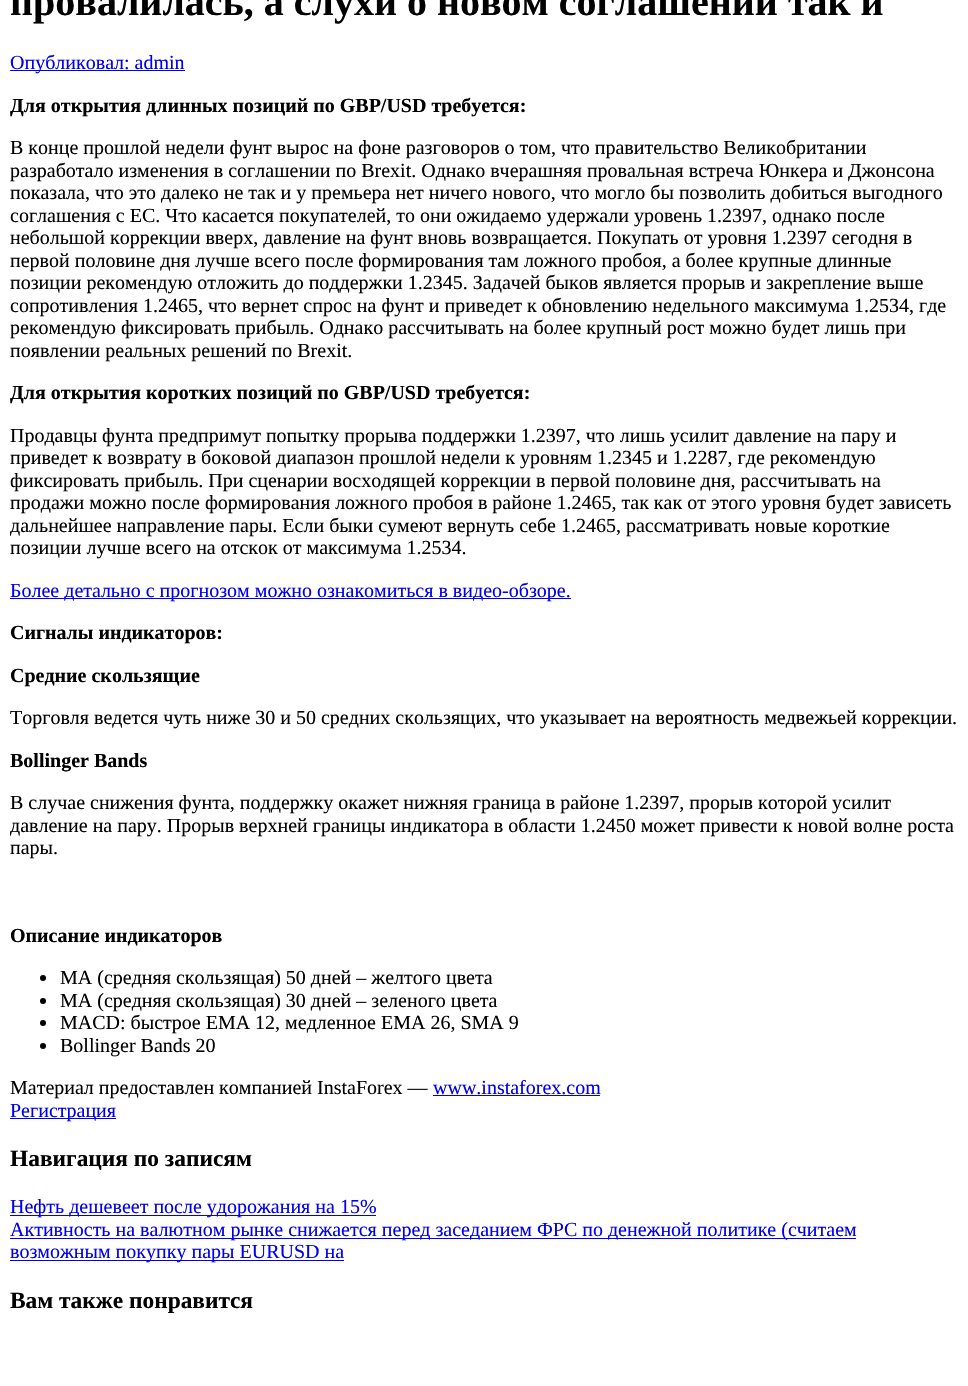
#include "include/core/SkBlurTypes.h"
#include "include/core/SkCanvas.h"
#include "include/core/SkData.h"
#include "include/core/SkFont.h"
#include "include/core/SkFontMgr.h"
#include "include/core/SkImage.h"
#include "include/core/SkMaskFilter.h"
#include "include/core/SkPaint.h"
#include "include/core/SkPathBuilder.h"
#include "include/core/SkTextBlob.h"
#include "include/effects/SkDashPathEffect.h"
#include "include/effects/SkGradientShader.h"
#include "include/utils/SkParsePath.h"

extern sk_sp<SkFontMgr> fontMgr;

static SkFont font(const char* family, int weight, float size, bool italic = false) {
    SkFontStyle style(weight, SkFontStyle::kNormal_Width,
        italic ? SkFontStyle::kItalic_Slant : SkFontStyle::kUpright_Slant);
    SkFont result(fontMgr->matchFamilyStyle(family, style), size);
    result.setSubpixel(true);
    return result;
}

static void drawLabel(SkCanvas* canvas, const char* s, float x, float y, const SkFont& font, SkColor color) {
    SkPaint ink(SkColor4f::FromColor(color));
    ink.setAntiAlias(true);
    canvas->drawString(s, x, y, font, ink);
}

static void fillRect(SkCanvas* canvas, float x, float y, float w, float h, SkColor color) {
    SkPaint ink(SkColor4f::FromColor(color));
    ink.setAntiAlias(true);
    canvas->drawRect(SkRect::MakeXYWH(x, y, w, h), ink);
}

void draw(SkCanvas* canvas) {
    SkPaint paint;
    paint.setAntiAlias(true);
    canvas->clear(0xFFFFFFFF);
    SkFont font1 = font("Liberation Serif", 700, 40);
    drawLabel(canvas, "провалилась, а слухи о новом соглашении так и", 10, 15, font1, 0xFF000000);
    fillRect(canvas, 10, 70, 175, 1, 0xFF0000EE);
    SkFont font2 = font("Liberation Serif", 400, 20);
    drawLabel(canvas, "Опубликовал: admin", 10, 69, font2, 0xFF0000EE);
    SkFont font3 = font("Liberation Serif", 700, 20);
    drawLabel(canvas, "Для открытия длинных позиций по GBP/USD требуется:", 10, 112, font3, 0xFF000000);
    drawLabel(canvas, "В конце прошлой недели фунт вырос на фоне разговоров о том, что правительство Великобритании", 10, 154, font2, 0xFF000000);
    drawLabel(canvas, "разработало изменения в соглашении по Brexit. Однако вчерашняя провальная встреча Юнкера и Джонсона", 10, 177, font2, 0xFF000000);
    drawLabel(canvas, "показала, что это далеко не так и у премьера нет ничего нового, что могло бы позволить добиться выгодного", 10, 199, font2, 0xFF000000);
    drawLabel(canvas, "соглашения с ЕС. Что касается покупателей, то они ожидаемо удержали уровень 1.2397, однако после", 10, 222, font2, 0xFF000000);
    drawLabel(canvas, "небольшой коррекции вверх, давление на фунт вновь возвращается. Покупать от уровня 1.2397 сегодня в", 10, 244, font2, 0xFF000000);
    drawLabel(canvas, "первой половине дня лучше всего после формирования там ложного пробоя, а более крупные длинные", 10, 267, font2, 0xFF000000);
    drawLabel(canvas, "позиции рекомендую отложить до поддержки 1.2345. Задачей быков является прорыв и закрепление выше", 10, 289, font2, 0xFF000000);
    drawLabel(canvas, "сопротивления 1.2465, что вернет спрос на фунт и приведет к обновлению недельного максимума 1.2534, где", 10, 312, font2, 0xFF000000);
    drawLabel(canvas, "рекомендую фиксировать прибыль. Однако рассчитывать на более крупный рост можно будет лишь при", 10, 334, font2, 0xFF000000);
    drawLabel(canvas, "появлении реальных решений по Brexit.", 10, 357, font2, 0xFF000000);
    drawLabel(canvas, "Для открытия коротких позиций по GBP/USD требуется:", 10, 399, font3, 0xFF000000);
    drawLabel(canvas, "Продавцы фунта предпримут попытку прорыва поддержки 1.2397, что лишь усилит давление на пару и", 10, 442, font2, 0xFF000000);
    drawLabel(canvas, "приведет к возврату в боковой диапазон прошлой недели к уровням 1.2345 и 1.2287, где рекомендую", 10, 464, font2, 0xFF000000);
    drawLabel(canvas, "фиксировать прибыль. При сценарии восходящей коррекции в первой половине дня, рассчитывать на", 10, 487, font2, 0xFF000000);
    drawLabel(canvas, "продажи можно после формирования ложного пробоя в районе 1.2465, так как от этого уровня будет зависеть", 10, 509, font2, 0xFF000000);
    drawLabel(canvas, "дальнейшее направление пары. Если быки сумеют вернуть себе 1.2465, рассматривать новые короткие", 10, 532, font2, 0xFF000000);
    drawLabel(canvas, "позиции лучше всего на отскок от максимума 1.2534.", 10, 554, font2, 0xFF000000);
    fillRect(canvas, 10, 598, 561, 1, 0xFF0000EE);
    drawLabel(canvas, "Более детально с прогнозом можно ознакомиться в видео-обзоре.", 10, 597, font2, 0xFF0000EE);
    drawLabel(canvas, "Сигналы индикаторов:", 10, 639, font3, 0xFF000000);
    drawLabel(canvas, "Средние скользящие", 10, 682, font3, 0xFF000000);
    drawLabel(canvas, "Торговля ведется чуть ниже 30 и 50 средних скользящих, что указывает на вероятность медвежьей коррекции.", 10, 724, font2, 0xFF000000);
    drawLabel(canvas, "Bollinger Bands", 10, 767, font3, 0xFF000000);
    drawLabel(canvas, "В случае снижения фунта, поддержку окажет нижняя граница в районе 1.2397, прорыв которой усилит", 10, 809, font2, 0xFF000000);
    drawLabel(canvas, "давление на пару. Прорыв верхней границы индикатора в области 1.2450 может привести к новой волне роста", 10, 832, font2, 0xFF000000);
    drawLabel(canvas, "пары.", 10, 854, font2, 0xFF000000);
    drawLabel(canvas, "Описание индикаторов", 10, 942, font3, 0xFF000000);
    paint.setColor(0xFF000000);
    canvas->drawCircle(43, 978, 3, paint);
    drawLabel(canvas, "MA (средняя скользящая) 50 дней – желтого цвета", 60, 984, font2, 0xFF000000);
    canvas->drawCircle(43, 1001, 3, paint);
    drawLabel(canvas, "MA (средняя скользящая) 30 дней – зеленого цвета", 60, 1007, font2, 0xFF000000);
    canvas->drawCircle(43, 1023, 3, paint);
    drawLabel(canvas, "MACD: быстрое EMA 12, медленное EMA 26, SMA 9", 60, 1029, font2, 0xFF000000);
    canvas->drawCircle(43, 1046, 3, paint);
    drawLabel(canvas, "Bollinger Bands 20", 60, 1052, font2, 0xFF000000);
    drawLabel(canvas, "Материал предоставлен компанией InstaForex —", 10, 1094, font2, 0xFF000000);
    drawLabel(canvas, "www.instaforex.com", 433, 1094, font2, 0xFF0000EE);
    fillRect(canvas, 433, 1095, 167, 1, 0xFF0000EE);
    fillRect(canvas, 10, 1118, 106, 1, 0xFF0000EE);
    drawLabel(canvas, "Регистрация", 10, 1117, font2, 0xFF0000EE);
    SkFont font4 = font("Liberation Serif", 700, 23.4f);
    drawLabel(canvas, "Навигация по записям", 10, 1166, font4, 0xFF000000);
    fillRect(canvas, 10, 1215, 366, 1, 0xFF0000EE);
    drawLabel(canvas, "Нефть дешевеет после удорожания на 15%", 10, 1213, font2, 0xFF0000EE);
    fillRect(canvas, 10, 1238, 846, 1, 0xFF0000EE);
    drawLabel(canvas, "Активность на валютном рынке снижается перед заседанием ФРС по денежной политике (считаем", 10, 1236, font2, 0xFF0000EE);
    fillRect(canvas, 10, 1260, 334, 1, 0xFF0000EE);
    drawLabel(canvas, "возможным покупку пары EURUSD на", 10, 1258, font2, 0xFF0000EE);
    drawLabel(canvas, "Вам также понравится", 10, 1308, font4, 0xFF000000);
}
